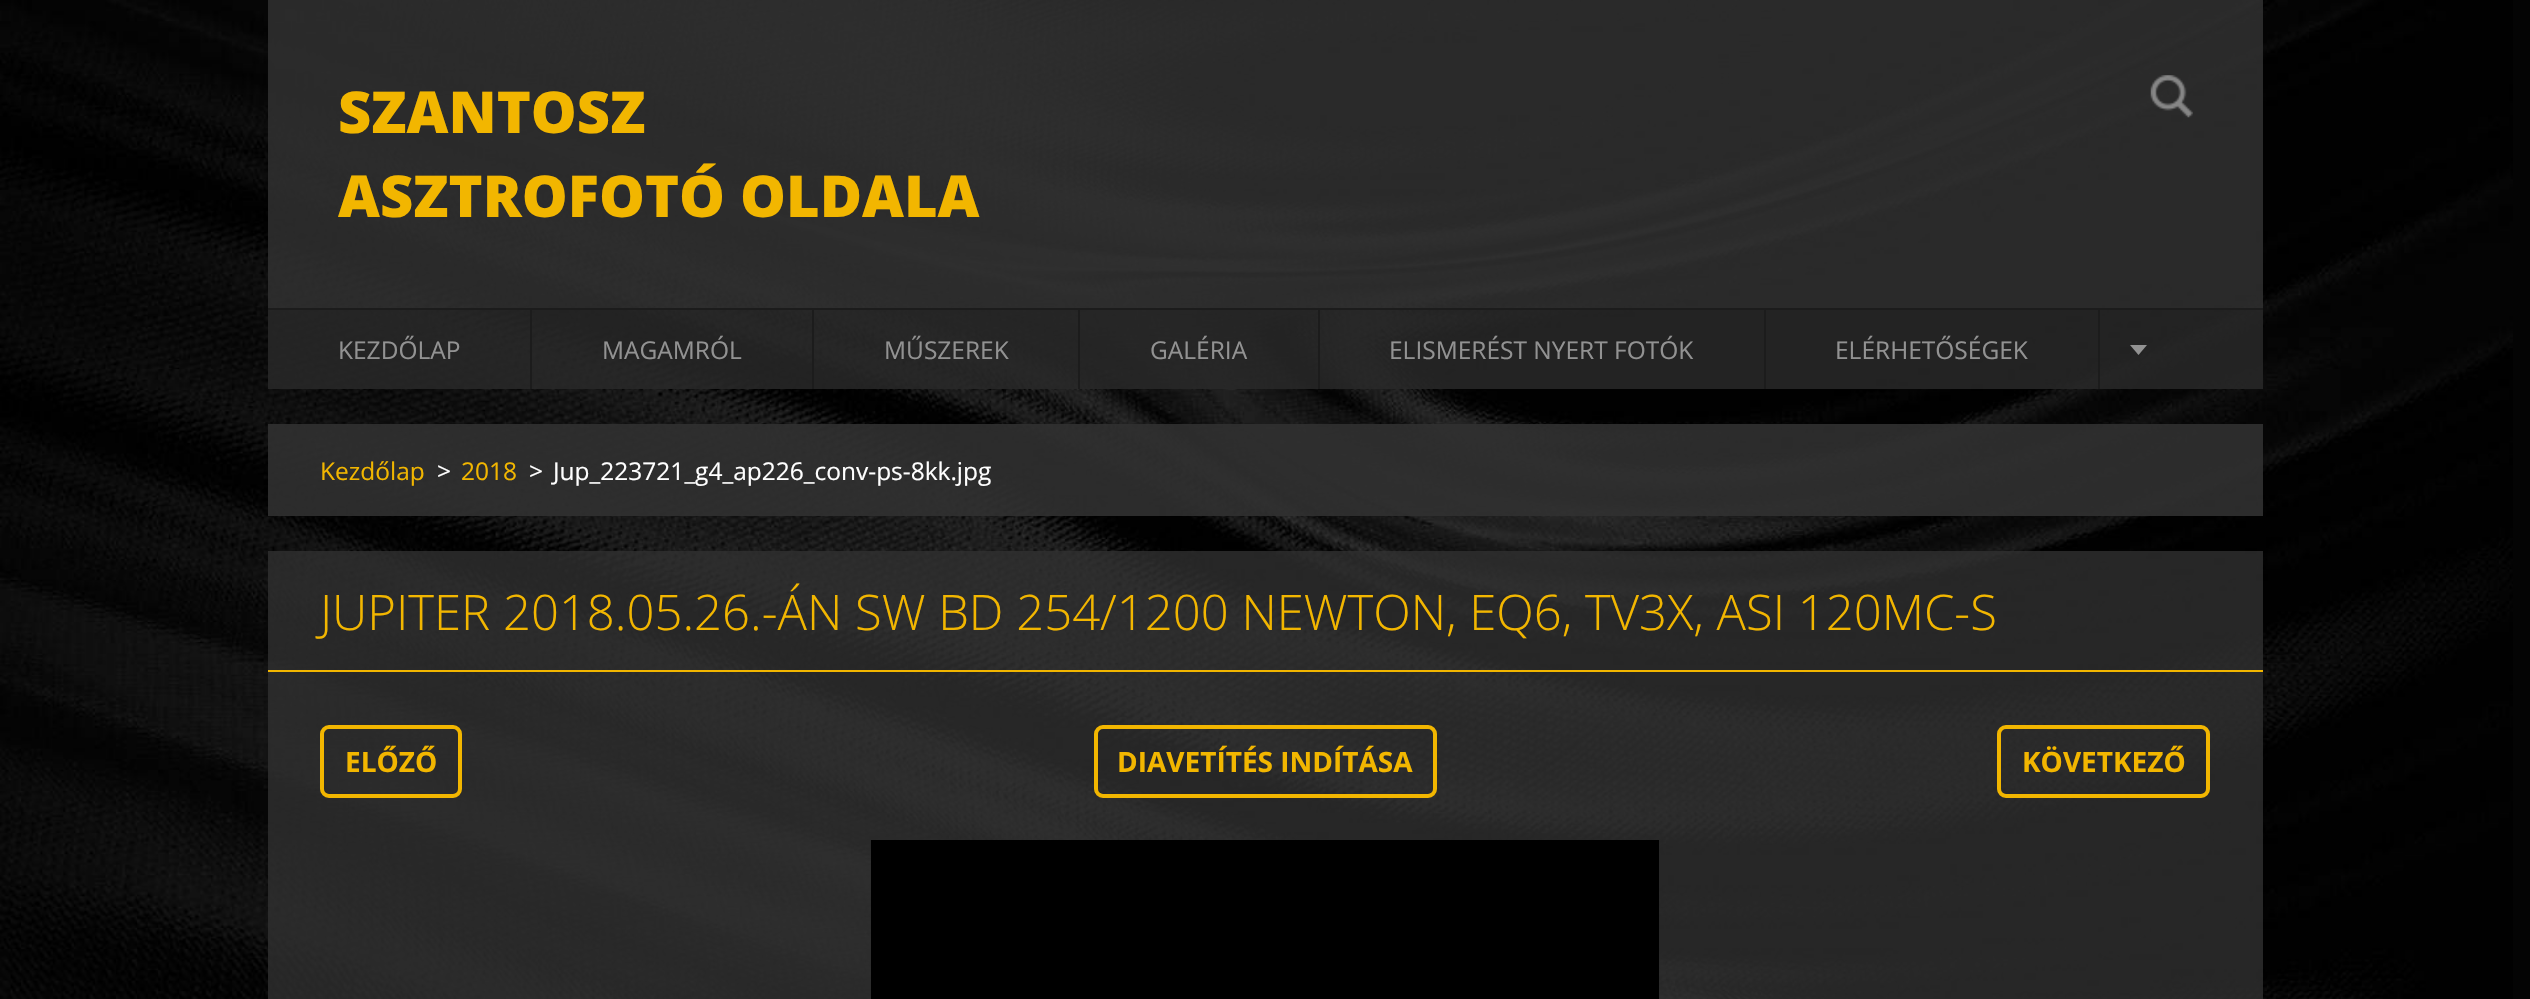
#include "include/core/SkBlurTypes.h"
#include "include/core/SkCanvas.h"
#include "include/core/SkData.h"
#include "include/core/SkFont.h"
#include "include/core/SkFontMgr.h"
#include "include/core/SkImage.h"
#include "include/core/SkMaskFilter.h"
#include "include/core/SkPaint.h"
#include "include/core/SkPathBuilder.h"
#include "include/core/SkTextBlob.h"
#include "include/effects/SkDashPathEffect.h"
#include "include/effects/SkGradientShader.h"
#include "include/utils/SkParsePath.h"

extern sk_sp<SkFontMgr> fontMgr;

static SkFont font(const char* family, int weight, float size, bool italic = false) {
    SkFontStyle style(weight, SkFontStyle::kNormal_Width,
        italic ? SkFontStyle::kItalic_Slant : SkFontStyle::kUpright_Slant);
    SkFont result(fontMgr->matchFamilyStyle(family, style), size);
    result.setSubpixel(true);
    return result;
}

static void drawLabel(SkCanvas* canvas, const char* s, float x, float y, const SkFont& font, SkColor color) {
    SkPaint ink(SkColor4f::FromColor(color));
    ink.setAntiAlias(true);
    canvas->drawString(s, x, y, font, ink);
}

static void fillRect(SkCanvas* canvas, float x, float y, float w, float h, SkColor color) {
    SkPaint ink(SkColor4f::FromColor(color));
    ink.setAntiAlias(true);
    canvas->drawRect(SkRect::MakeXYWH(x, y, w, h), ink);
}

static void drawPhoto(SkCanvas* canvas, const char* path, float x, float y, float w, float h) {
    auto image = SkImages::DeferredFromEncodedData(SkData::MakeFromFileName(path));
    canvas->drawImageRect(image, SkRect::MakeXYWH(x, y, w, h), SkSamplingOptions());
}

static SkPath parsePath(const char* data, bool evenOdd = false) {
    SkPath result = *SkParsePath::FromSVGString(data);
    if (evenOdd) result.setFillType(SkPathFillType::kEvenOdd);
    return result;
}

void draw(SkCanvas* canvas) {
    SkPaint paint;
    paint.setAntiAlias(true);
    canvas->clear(0xFF040404);
    drawPhoto(canvas, "assets/img1.png", 0, 0, 2513, 999);
    fillRect(canvas, 268, 0, 1995, 308, 0xD9303030);
    SkFont font1 = font("Open Sans", 800, 57.75f);
    drawLabel(canvas, "SZANTOSZ", 338, 133, font1, 0xFFF2B600);
    drawLabel(canvas, "ASZTROFOTÓ OLDALA", 338, 217, font1, 0xFFF2B600);
    drawPhoto(canvas, "assets/img2.png", 2150, 75, 43, 43);
    fillRect(canvas, 268, 308, 1995, 2, 0xFF1C1C1C);
    fillRect(canvas, 268, 310, 1995, 79, 0xD9282828);
    fillRect(canvas, 530, 310, 2, 79, 0xFF1C1C1C);
    SkFont font2 = font("Open Sans", 400, 24.5f);
    drawLabel(canvas, "KEZDŐLAP", 338, 359, font2, 0xFF929292);
    fillRect(canvas, 812, 310, 2, 79, 0xFF1C1C1C);
    drawLabel(canvas, "MAGAMRÓL", 602, 359, font2, 0xFF929292);
    fillRect(canvas, 1078, 310, 2, 79, 0xFF1C1C1C);
    drawLabel(canvas, "MŰSZEREK", 884, 359, font2, 0xFF929292);
    fillRect(canvas, 1318, 310, 2, 79, 0xFF1C1C1C);
    drawLabel(canvas, "GALÉRIA", 1150, 359, font2, 0xFF929292);
    fillRect(canvas, 1764, 310, 2, 79, 0xFF1C1C1C);
    drawLabel(canvas, "ELISMERÉST NYERT FOTÓK", 1389, 359, font2, 0xFF929292);
    fillRect(canvas, 2098, 310, 2, 79, 0xFF1C1C1C);
    drawLabel(canvas, "ELÉRHETŐSÉGEK", 1835, 359, font2, 0xFF929292);
    paint.setColor(0xFF929292);
    canvas->drawPath(parsePath("M2130 345H2147L2138.5 355Z"), paint);
    fillRect(canvas, 268, 424, 1995, 92, 0xE6303030);
    drawLabel(canvas, "Kezdőlap", 320, 480, font2, 0xFFF2B600);
    drawLabel(canvas, ">", 437, 480, font2, 0xFFFFFFFF);
    drawLabel(canvas, "2018", 461, 480, font2, 0xFFF2B600);
    drawLabel(canvas, ">", 529, 480, font2, 0xFFFFFFFF);
    drawLabel(canvas, "Jup_223721_g4_ap226_conv-ps-8kk.jpg", 553, 480, font2, 0xFFFFFFFF);
    fillRect(canvas, 268, 551, 1995, 119, 0xCC303030);
    fillRect(canvas, 268, 670, 1995, 2, 0xFFF2B600);
    SkFont font3 = font("Open Sans", 300, 49);
    drawLabel(canvas, "JUPITER 2018.05.26.-ÁN SW BD 254/1200 NEWTON, EQ6, TV3X, ASI 120MC-S", 320, 630, font3, 0xFFF2B600);
    fillRect(canvas, 268, 672, 1995, 327, 0xCC303030);
    paint.setStroke(true);
    paint.setStrokeWidth(4);
    paint.setColor(0xFFF2B600);
    canvas->drawRoundRect(SkRect::MakeXYWH(322, 727, 138, 69), 7, 7, paint);
    SkFont font4 = font("Open Sans", 700, 28);
    drawLabel(canvas, "ELŐZŐ", 345, 772, font4, 0xFFF2B600);
    canvas->drawRoundRect(SkRect::MakeXYWH(1096, 727, 339, 69), 7, 7, paint);
    drawLabel(canvas, "DIAVETÍTÉS INDÍTÁSA", 1117, 772, font4, 0xFFF2B600);
    canvas->drawRoundRect(SkRect::MakeXYWH(1999, 727, 209, 69), 7, 7, paint);
    drawLabel(canvas, "KÖVETKEZŐ", 2022, 772, font4, 0xFFF2B600);
    fillRect(canvas, 871, 840, 788, 159, 0xFF000000);
}
